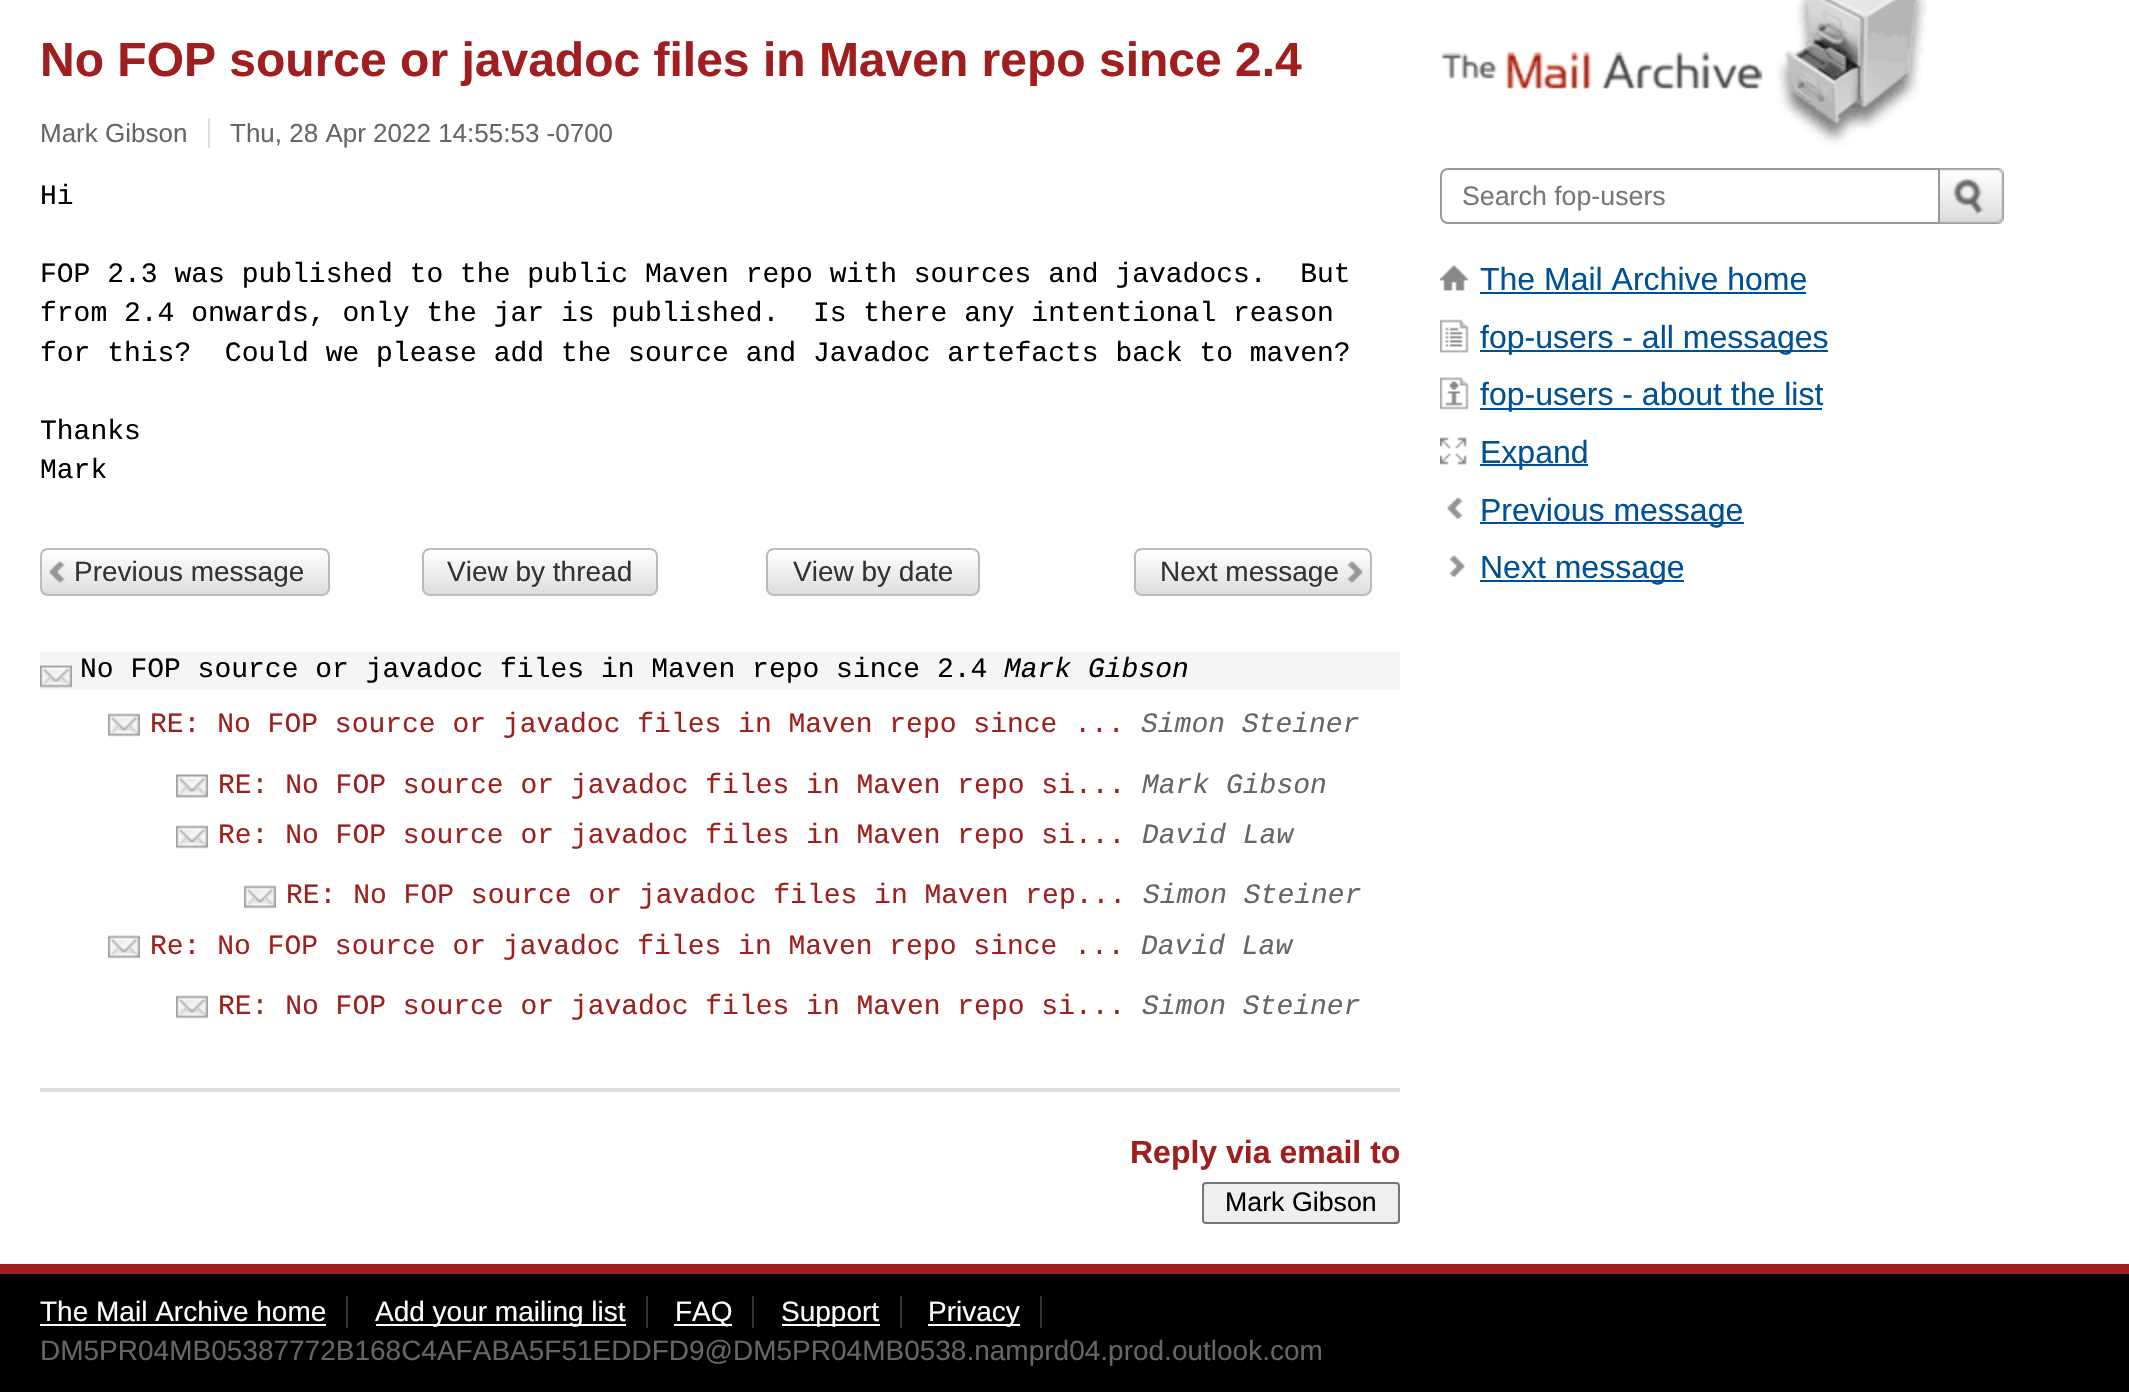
#include "include/core/SkBlurTypes.h"
#include "include/core/SkCanvas.h"
#include "include/core/SkData.h"
#include "include/core/SkFont.h"
#include "include/core/SkFontMgr.h"
#include "include/core/SkImage.h"
#include "include/core/SkMaskFilter.h"
#include "include/core/SkPaint.h"
#include "include/core/SkPathBuilder.h"
#include "include/core/SkTextBlob.h"
#include "include/effects/SkDashPathEffect.h"
#include "include/effects/SkGradientShader.h"
#include "include/utils/SkParsePath.h"

extern sk_sp<SkFontMgr> fontMgr;

static SkFont font(const char* family, int weight, float size, bool italic = false) {
    SkFontStyle style(weight, SkFontStyle::kNormal_Width,
        italic ? SkFontStyle::kItalic_Slant : SkFontStyle::kUpright_Slant);
    SkFont result(fontMgr->matchFamilyStyle(family, style), size);
    result.setSubpixel(true);
    return result;
}

static void drawLabel(SkCanvas* canvas, const char* s, float x, float y, const SkFont& font, SkColor color) {
    SkPaint ink(SkColor4f::FromColor(color));
    ink.setAntiAlias(true);
    canvas->drawString(s, x, y, font, ink);
}

static void fillRect(SkCanvas* canvas, float x, float y, float w, float h, SkColor color) {
    SkPaint ink(SkColor4f::FromColor(color));
    ink.setAntiAlias(true);
    canvas->drawRect(SkRect::MakeXYWH(x, y, w, h), ink);
}

static void drawPhoto(SkCanvas* canvas, const char* path, float x, float y, float w, float h) {
    auto image = SkImages::DeferredFromEncodedData(SkData::MakeFromFileName(path));
    canvas->drawImageRect(image, SkRect::MakeXYWH(x, y, w, h), SkSamplingOptions());
}

static SkPath parsePath(const char* data, bool evenOdd = false) {
    SkPath result = *SkParsePath::FromSVGString(data);
    if (evenOdd) result.setFillType(SkPathFillType::kEvenOdd);
    return result;
}

void draw(SkCanvas* canvas) {
    SkPaint paint;
    paint.setAntiAlias(true);
    canvas->clear(0xFFFFFFFF);
    SkFont font1 = font("Liberation Sans", 700, 48);
    drawLabel(canvas, "No FOP source or javadoc files in Maven repo since 2.4", 40, 76, font1, 0xFFA01E1E);
    SkFont font2 = font("Liberation Sans", 400, 26);
    drawLabel(canvas, "Mark Gibson", 40, 142, font2, 0xFF666666);
    fillRect(canvas, 208, 118, 2, 30, 0xFFDDDDDD);
    drawLabel(canvas, "Thu, 28 Apr 2022 14:55:53 -0700", 230, 142, font2, 0xFF666666);
    SkFont font3 = font("Liberation Mono", 400, 28);
    drawLabel(canvas, "Hi", 40, 204, font3, 0xFF000000);
    drawLabel(canvas, "FOP 2.3 was published to the public Maven repo with sources and javadocs.  But", 40, 282, font3, 0xFF000000);
    drawLabel(canvas, "from 2.4 onwards, only the jar is published.  Is there any intentional reason", 40, 321, font3, 0xFF000000);
    drawLabel(canvas, "for this?  Could we please add the source and Javadoc artefacts back to maven?", 40, 361, font3, 0xFF000000);
    drawLabel(canvas, "Thanks", 40, 439, font3, 0xFF000000);
    drawLabel(canvas, "Mark", 40, 478, font3, 0xFF000000);
    drawPhoto(canvas, "assets/img1.png", 40, 548, 290, 48);
    paint.setStroke(true);
    paint.setStrokeWidth(2);
    paint.setColor(0xFFBBBBBB);
    canvas->drawRoundRect(SkRect::MakeXYWH(41, 549, 288, 46), 7, 7, paint);
    SkFont font4 = font("Liberation Sans", 400, 28);
    drawLabel(canvas, "Previous message", 74, 581, font4, 0xFF333333);
    canvas->save();
    canvas->clipPath(parsePath("M430 548H650C654.5 548 658 551.5 658 556V588C658 592.5 654.5 596 650 596H430C425.5 596 422 592.5 422 588V556C422 551.5 425.5 548 430 548Z"), true);
    paint.setStroke(false);
    {
        const SkColor colors[] = {0xFFFFFFFF, 0xFFDDDDDD};
        const float stops[] = {0, 1};
        const SkPoint ends[] = {{540, 550}, {540, 594}};
        paint.setShader(SkGradientShader::MakeLinear(ends, colors, stops, 2, SkTileMode::kClamp));
        paint.setAlpha(255);
    }
    canvas->drawRect(SkRect::MakeXYWH(422, 550, 236, 44), paint);
    canvas->restore();
    paint.setStroke(true);
    paint.setShader(nullptr);
    paint.setColor(0xFFBBBBBB);
    canvas->drawRoundRect(SkRect::MakeXYWH(423, 549, 234, 46), 7, 7, paint);
    drawLabel(canvas, "View by thread", 447, 581, font4, 0xFF333333);
    canvas->save();
    canvas->clipPath(parsePath("M774 548H972C976.5 548 980 551.5 980 556V588C980 592.5 976.5 596 972 596H774C769.5 596 766 592.5 766 588V556C766 551.5 769.5 548 774 548Z"), true);
    paint.setStroke(false);
    {
        const SkColor colors[] = {0xFFFFFFFF, 0xFFDDDDDD};
        const float stops[] = {0, 1};
        const SkPoint ends[] = {{873, 550}, {873, 594}};
        paint.setShader(SkGradientShader::MakeLinear(ends, colors, stops, 2, SkTileMode::kClamp));
        paint.setAlpha(255);
    }
    canvas->drawRect(SkRect::MakeXYWH(766, 550, 214, 44), paint);
    canvas->restore();
    paint.setStroke(true);
    paint.setShader(nullptr);
    paint.setColor(0xFFBBBBBB);
    canvas->drawRoundRect(SkRect::MakeXYWH(767, 549, 212, 46), 7, 7, paint);
    drawLabel(canvas, "View by date", 793, 581, font4, 0xFF333333);
    drawPhoto(canvas, "assets/img2.png", 1134, 548, 238, 48);
    canvas->drawRoundRect(SkRect::MakeXYWH(1135, 549, 236, 46), 7, 7, paint);
    drawLabel(canvas, "Next message", 1160, 581, font4, 0xFF333333);
    fillRect(canvas, 40, 652, 1360, 38, 0xFFF4F5F5);
    drawPhoto(canvas, "assets/img3.png", 40, 665, 32, 23);
    drawLabel(canvas, "No FOP source or javadoc files in Maven repo since 2.4", 80, 677, font3, 0xFF000000);
    SkFont font5 = font("Liberation Mono", 400, 28, true);
    drawLabel(canvas, "Mark Gibson", 1004, 677, font5, 0xFF000000);
    drawPhoto(canvas, "assets/img4.png", 108, 713, 32, 24);
    drawLabel(canvas, "RE: No FOP source or javadoc files in Maven repo since ...", 150, 732, font3, 0xFFA01E1E);
    drawLabel(canvas, "Simon Steiner", 1141, 732, font5, 0xFF666666);
    drawPhoto(canvas, "assets/img5.png", 176, 774, 32, 24);
    drawLabel(canvas, "RE: No FOP source or javadoc files in Maven repo si...", 218, 793, font3, 0xFFA01E1E);
    drawLabel(canvas, "Mark Gibson", 1142, 793, font5, 0xFF666666);
    drawPhoto(canvas, "assets/img4.png", 176, 825, 32, 24);
    drawLabel(canvas, "Re: No FOP source or javadoc files in Maven repo si...", 218, 843, font3, 0xFFA01E1E);
    drawLabel(canvas, "David Law", 1142, 843, font5, 0xFF666666);
    drawPhoto(canvas, "assets/img4.png", 244, 885, 32, 24);
    drawLabel(canvas, "RE: No FOP source or javadoc files in Maven rep...", 286, 903, font3, 0xFFA01E1E);
    drawLabel(canvas, "Simon Steiner", 1143, 903, font5, 0xFF666666);
    drawPhoto(canvas, "assets/img4.png", 108, 935, 32, 24);
    drawLabel(canvas, "Re: No FOP source or javadoc files in Maven repo since ...", 150, 954, font3, 0xFFA01E1E);
    drawLabel(canvas, "David Law", 1141, 954, font5, 0xFF666666);
    drawPhoto(canvas, "assets/img4.png", 176, 995, 32, 24);
    drawLabel(canvas, "RE: No FOP source or javadoc files in Maven repo si...", 218, 1014, font3, 0xFFA01E1E);
    drawLabel(canvas, "Simon Steiner", 1142, 1014, font5, 0xFF666666);
    fillRect(canvas, 40, 1088, 1360, 4, 0xFFDDDDDD);
    SkFont font6 = font("Liberation Sans", 700, 32);
    drawLabel(canvas, "Reply via email to", 1130, 1163, font6, 0xFFA01E1E);
    paint.setStroke(false);
    paint.setColor(0xFFEFEFEF);
    canvas->drawRoundRect(SkRect::MakeXYWH(1203, 1183, 196, 40), 3, 3, paint);
    paint.setStroke(true);
    paint.setColor(0xFF767676);
    canvas->drawRoundRect(SkRect::MakeXYWH(1203, 1183, 196, 40), 3, 3, paint);
    SkFont font7 = font("Liberation Sans", 400, 26.75f);
    drawLabel(canvas, "Mark Gibson", 1225, 1211, font7, 0xFF000000);
    drawPhoto(canvas, "assets/img6.png", 1441, 0, 486, 147);
    paint.setColor(0xFF999999);
    canvas->drawPath(parsePath("M1448 169H1939V223H1448C1444 223 1441 220 1441 216V176C1441 172 1444 169 1448 169Z"), paint);
    drawLabel(canvas, "Search fop-users", 1462, 205, font7, 0xFF777777);
    drawPhoto(canvas, "assets/img7.png", 1940, 168, 64, 56);
    drawPhoto(canvas, "assets/img8.png", 1440, 265, 29, 26);
    SkFont font8 = font("Liberation Sans", 400, 32);
    drawLabel(canvas, "The Mail Archive home", 1480, 290, font8, 0xFF005096);
    fillRect(canvas, 1480, 292, 326, 2, 0xFF005096);
    drawPhoto(canvas, "assets/img9.png", 1440, 319, 29, 34);
    fillRect(canvas, 1480, 350, 348, 2, 0xFF005096);
    drawLabel(canvas, "fop-users - all messages", 1480, 348, font8, 0xFF005096);
    drawPhoto(canvas, "assets/img10.png", 1440, 377, 29, 33);
    fillRect(canvas, 1480, 408, 342, 2, 0xFF005096);
    drawLabel(canvas, "fop-users - about the list", 1480, 405, font8, 0xFF005096);
    drawPhoto(canvas, "assets/img11.png", 1440, 437, 27, 28);
    fillRect(canvas, 1480, 464, 108, 2, 0xFF005096);
    drawLabel(canvas, "Expand", 1480, 463, font8, 0xFF005096);
    drawPhoto(canvas, "assets/img12.png", 1447, 497, 16, 22);
    fillRect(canvas, 1480, 522, 264, 2, 0xFF005096);
    drawLabel(canvas, "Previous message", 1480, 521, font8, 0xFF005096);
    drawPhoto(canvas, "assets/img13.png", 1449, 555, 16, 22);
    fillRect(canvas, 1480, 580, 204, 2, 0xFF005096);
    drawLabel(canvas, "Next message", 1480, 578, font8, 0xFF005096);
    fillRect(canvas, 0, 1274, 2129, 118, 0xFF000000);
    fillRect(canvas, 0, 1264, 2129, 10, 0xFFA01E1E);
    drawLabel(canvas, "The Mail Archive home", 40, 1321, font4, 0xFFFFFFFF);
    fillRect(canvas, 346, 1296, 2, 32, 0xFF333333);
    fillRect(canvas, 40, 1324, 286, 2, 0xFFFFFFFF);
    fillRect(canvas, 376, 1324, 250, 2, 0xFFFFFFFF);
    drawLabel(canvas, "Add your mailing list", 375, 1321, font4, 0xFFFFFFFF);
    fillRect(canvas, 646, 1296, 2, 32, 0xFF333333);
    fillRect(canvas, 674, 1324, 58, 2, 0xFFFFFFFF);
    drawLabel(canvas, "FAQ", 675, 1321, font4, 0xFFFFFFFF);
    fillRect(canvas, 752, 1296, 2, 32, 0xFF333333);
    fillRect(canvas, 782, 1324, 98, 2, 0xFFFFFFFF);
    drawLabel(canvas, "Support", 781, 1321, font4, 0xFFFFFFFF);
    fillRect(canvas, 900, 1296, 2, 32, 0xFF333333);
    fillRect(canvas, 928, 1324, 92, 2, 0xFFFFFFFF);
    drawLabel(canvas, "Privacy", 928, 1321, font4, 0xFFFFFFFF);
    fillRect(canvas, 1040, 1296, 2, 32, 0xFF333333);
    drawLabel(canvas, "DM5PR04MB05387772B168C4AFABA5F51EDDFD9@DM5PR04MB0538.namprd04.prod.outlook.com", 40, 1360, font4, 0xFF666666);
}
